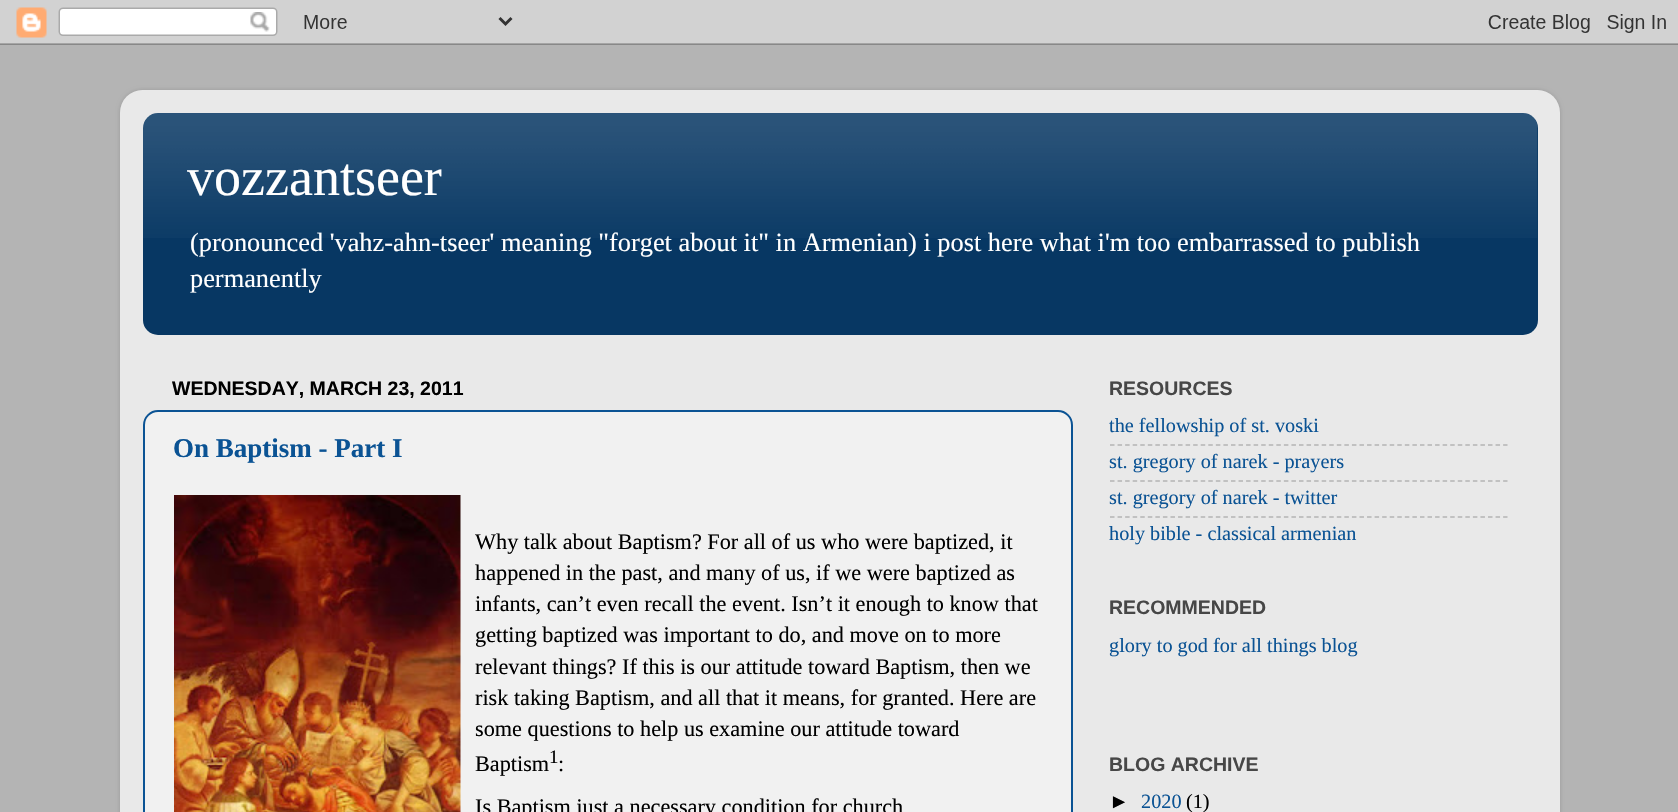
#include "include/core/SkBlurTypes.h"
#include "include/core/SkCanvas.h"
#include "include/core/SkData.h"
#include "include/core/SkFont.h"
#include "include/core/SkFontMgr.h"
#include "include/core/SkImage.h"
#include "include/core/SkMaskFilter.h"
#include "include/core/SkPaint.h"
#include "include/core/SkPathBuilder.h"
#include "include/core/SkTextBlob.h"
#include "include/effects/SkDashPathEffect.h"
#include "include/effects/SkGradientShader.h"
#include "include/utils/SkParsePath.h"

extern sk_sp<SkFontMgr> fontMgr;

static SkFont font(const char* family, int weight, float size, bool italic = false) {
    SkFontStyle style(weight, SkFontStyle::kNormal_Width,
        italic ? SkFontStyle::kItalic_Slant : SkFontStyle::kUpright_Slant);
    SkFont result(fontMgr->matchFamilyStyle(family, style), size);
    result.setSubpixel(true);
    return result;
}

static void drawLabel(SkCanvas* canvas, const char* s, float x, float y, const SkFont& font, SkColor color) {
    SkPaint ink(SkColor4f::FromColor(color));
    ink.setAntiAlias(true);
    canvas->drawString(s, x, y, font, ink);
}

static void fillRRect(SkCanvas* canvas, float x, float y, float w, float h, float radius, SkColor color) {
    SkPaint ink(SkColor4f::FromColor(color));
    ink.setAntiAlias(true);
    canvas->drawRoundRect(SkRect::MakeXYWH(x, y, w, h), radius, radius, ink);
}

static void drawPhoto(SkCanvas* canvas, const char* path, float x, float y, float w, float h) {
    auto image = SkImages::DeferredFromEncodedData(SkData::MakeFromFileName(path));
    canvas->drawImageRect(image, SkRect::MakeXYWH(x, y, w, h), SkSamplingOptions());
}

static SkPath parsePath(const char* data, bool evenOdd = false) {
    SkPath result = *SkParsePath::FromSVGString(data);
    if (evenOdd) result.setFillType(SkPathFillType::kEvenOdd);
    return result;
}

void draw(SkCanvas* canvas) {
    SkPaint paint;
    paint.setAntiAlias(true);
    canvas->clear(0xFFB4B4B4);
    drawPhoto(canvas, "assets/img1.png", 0, 0, 1678, 45);
    canvas->save();
    canvas->clipPath(parsePath("M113 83H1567V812H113ZM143 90H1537C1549.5 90 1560 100.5 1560 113V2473C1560 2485.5 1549.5 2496 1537 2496H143C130.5 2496 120 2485.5 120 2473V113C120 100.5 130.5 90 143 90Z", true), true);
    paint.setColor(0x26000000);
    paint.setMaskFilter(SkMaskFilter::MakeBlur(kNormal_SkBlurStyle, 2));
    canvas->drawRoundRect(SkRect::MakeXYWH(120, 90, 1440, 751), 23, 23, paint);
    paint.setMaskFilter(nullptr);
    canvas->restore();
    drawPhoto(canvas, "assets/img2.png", 120, 90, 1440, 722);
    fillRRect(canvas, 143, 113, 1395, 222, 15, 0xFF073763);
    drawPhoto(canvas, "assets/img3.png", 143, 113, 1395, 125);
    SkFont font1 = font("Liberation Serif", 400, 54);
    drawLabel(canvas, "vozzantseer", 187, 195, font1, 0xFFFFFFFF);
    SkFont font2 = font("Liberation Serif", 400, 26.35f);
    drawLabel(canvas, "(pronounced 'vahz-ahn-tseer' meaning \"forget about it\" in Armenian) i post here what i'm too embarrassed to publish", 190, 251, font2, 0xFFFFFFFF);
    drawLabel(canvas, "permanently", 190, 287, font2, 0xFFFFFFFF);
    SkFont font3 = font("Liberation Sans", 700, 19.5f);
    drawLabel(canvas, "WEDNESDAY, MARCH 23, 2011", 172, 395, font3, 0xFF000000);
    paint.setColor(0xFFF1F1F1);
    canvas->drawRoundRect(SkRect::MakeXYWH(144, 411, 928, 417), 14, 14, paint);
    paint.setStroke(true);
    paint.setStrokeWidth(2);
    paint.setColor(0xFF0B5394);
    canvas->drawRoundRect(SkRect::MakeXYWH(144, 411, 928, 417), 14, 14, paint);
    SkFont font4 = font("Liberation Serif", 700, 27);
    drawLabel(canvas, "On Baptism - Part I", 173, 457, font4, 0xFF0B5394);
    drawPhoto(canvas, "assets/img4.png", 174, 495, 287, 317);
    SkFont font5 = font("Liberation Serif", 400, 22.25f);
    drawLabel(canvas, "Why talk about Baptism? For all of us who were baptized, it", 475, 549, font5, 0xFF000000);
    drawLabel(canvas, "happened in the past, and many of us, if we were baptized as", 475, 580, font5, 0xFF000000);
    drawLabel(canvas, "infants, can’t even recall the event. Isn’t it enough to know that", 475, 611, font5, 0xFF000000);
    drawLabel(canvas, "getting baptized was important to do, and move on to more", 475, 642, font5, 0xFF000000);
    drawLabel(canvas, "relevant things? If this is our attitude toward Baptism, then we", 475, 674, font5, 0xFF000000);
    drawLabel(canvas, "risk taking Baptism, and all that it means, for granted. Here are", 475, 705, font5, 0xFF000000);
    drawLabel(canvas, "some questions to help us examine our attitude toward", 475, 736, font5, 0xFF000000);
    drawLabel(canvas, "Baptism", 475, 771, font5, 0xFF000000);
    SkFont font6 = font("Liberation Serif", 400, 19);
    drawLabel(canvas, "1", 549, 763, font6, 0xFF000000);
    drawLabel(canvas, ":", 558, 771, font5, 0xFF000000);
    drawLabel(canvas, "Is Baptism just a necessary condition for church", 475, 814, font5, 0xFF000000);
    drawLabel(canvas, "RESOURCES", 1109, 395, font3, 0xFF474747);
    SkFont font7 = font("Liberation Serif", 400, 20.25f);
    drawLabel(canvas, "the fellowship of st. voski", 1109, 432, font7, 0xFF0B5394);
    paint.setStrokeWidth(1.5f);
    paint.setColor(0xFFB4B4B4);
    paint.setPathEffect(SkDashPathEffect::Make({{4.5f, 3.06f}}, 0));
    canvas->drawPath(parsePath("M1110 445H1507.5"), paint);
    paint.setPathEffect(nullptr);
    drawLabel(canvas, "st. gregory of narek - prayers", 1109, 468, font7, 0xFF0B5394);
    paint.setPathEffect(SkDashPathEffect::Make({{4.5f, 3.06f}}, 0));
    canvas->drawPath(parsePath("M1110 481H1507.5"), paint);
    paint.setPathEffect(nullptr);
    drawLabel(canvas, "st. gregory of narek - twitter", 1109, 504, font7, 0xFF0B5394);
    paint.setPathEffect(SkDashPathEffect::Make({{4.5f, 3.06f}}, 0));
    canvas->drawPath(parsePath("M1110 517H1507.5"), paint);
    paint.setPathEffect(nullptr);
    drawLabel(canvas, "holy bible - classical armenian", 1109, 540, font7, 0xFF0B5394);
    drawLabel(canvas, "RECOMMENDED", 1109, 614, font3, 0xFF474747);
    drawLabel(canvas, "glory to god for all things blog", 1109, 652, font7, 0xFF0B5394);
    drawLabel(canvas, "BLOG ARCHIVE", 1109, 771, font3, 0xFF474747);
    SkFont font8 = font("Liberation Sans", 400, 20.25f);
    drawLabel(canvas, "►", 1109, 808, font8, 0xFF000000);
    drawLabel(canvas, "2020", 1141, 808, font7, 0xFF0B5394);
    drawLabel(canvas, "(1)", 1186, 808, font7, 0xFF000000);
}
